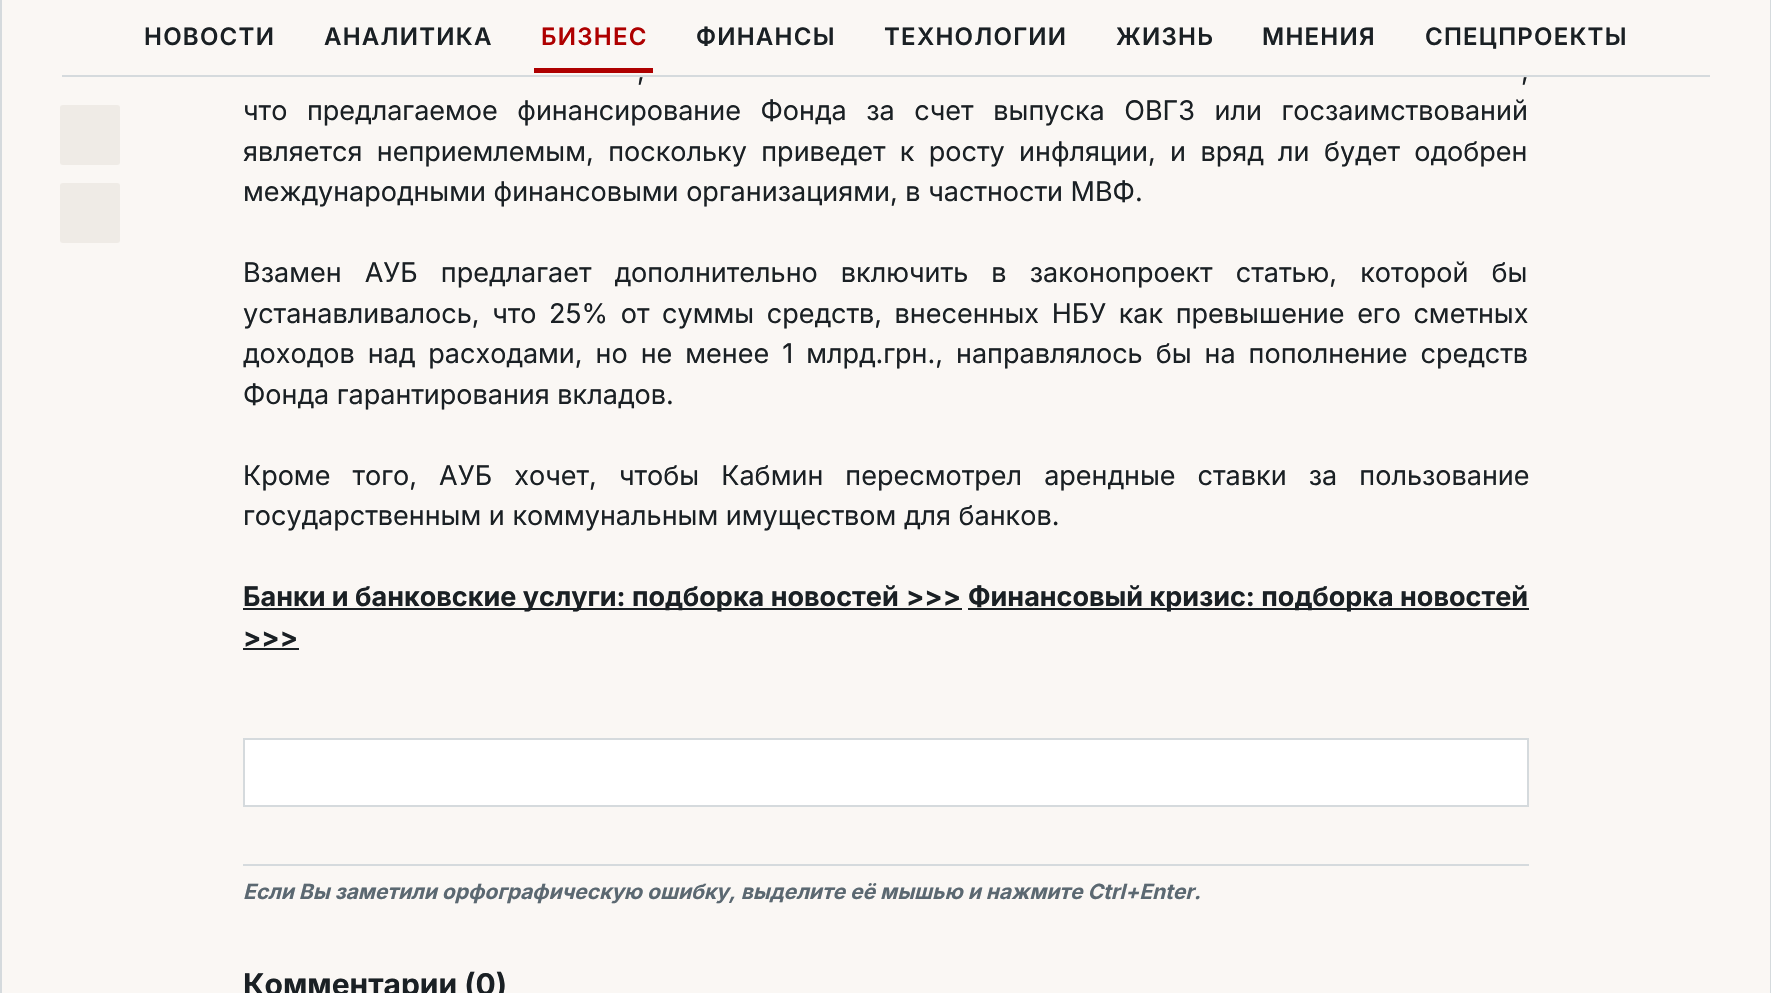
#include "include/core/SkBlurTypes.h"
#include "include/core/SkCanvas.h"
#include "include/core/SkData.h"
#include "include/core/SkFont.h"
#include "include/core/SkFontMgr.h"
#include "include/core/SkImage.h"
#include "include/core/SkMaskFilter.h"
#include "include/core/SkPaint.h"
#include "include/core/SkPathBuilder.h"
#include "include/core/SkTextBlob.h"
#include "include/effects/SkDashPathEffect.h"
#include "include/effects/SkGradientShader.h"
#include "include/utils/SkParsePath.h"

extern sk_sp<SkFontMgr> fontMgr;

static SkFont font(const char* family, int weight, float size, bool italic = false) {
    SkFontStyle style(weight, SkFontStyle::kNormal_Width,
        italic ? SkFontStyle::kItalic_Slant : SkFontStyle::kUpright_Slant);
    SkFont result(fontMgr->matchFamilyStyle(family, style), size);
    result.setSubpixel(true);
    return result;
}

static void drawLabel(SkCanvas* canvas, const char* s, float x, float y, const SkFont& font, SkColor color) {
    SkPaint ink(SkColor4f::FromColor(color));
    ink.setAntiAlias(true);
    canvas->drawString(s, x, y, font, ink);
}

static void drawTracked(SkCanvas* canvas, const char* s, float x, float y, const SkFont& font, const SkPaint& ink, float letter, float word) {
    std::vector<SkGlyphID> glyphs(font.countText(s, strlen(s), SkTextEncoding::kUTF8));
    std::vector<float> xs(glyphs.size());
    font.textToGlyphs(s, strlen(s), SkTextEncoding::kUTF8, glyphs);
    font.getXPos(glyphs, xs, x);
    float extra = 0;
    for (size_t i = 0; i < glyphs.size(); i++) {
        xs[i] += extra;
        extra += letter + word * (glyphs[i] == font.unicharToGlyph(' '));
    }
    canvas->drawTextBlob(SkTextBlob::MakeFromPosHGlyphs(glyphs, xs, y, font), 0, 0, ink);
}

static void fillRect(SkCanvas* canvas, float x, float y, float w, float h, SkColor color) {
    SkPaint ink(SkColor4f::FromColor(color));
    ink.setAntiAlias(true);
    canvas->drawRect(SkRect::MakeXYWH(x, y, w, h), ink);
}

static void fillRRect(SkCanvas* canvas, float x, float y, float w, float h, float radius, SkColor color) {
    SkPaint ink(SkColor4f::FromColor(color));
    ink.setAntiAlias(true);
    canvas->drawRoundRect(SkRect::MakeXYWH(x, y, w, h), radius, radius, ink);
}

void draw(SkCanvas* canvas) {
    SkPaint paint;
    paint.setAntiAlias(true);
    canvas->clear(0xFFFAF7F4);
    fillRect(canvas, 1770, 0, 1, 993, 0xFFD5DADD);
    fillRect(canvas, 0, 0, 2, 993, 0xFFD5DADD);
    fillRect(canvas, 62, 75, 1648, 2, 0xFFD5DADD);
    SkFont font1 = font("Inter", 600, 24);
    paint.setColor(0xFF1A2024);
    drawTracked(canvas, "НОВОСТИ", 144, 45, font1, paint, 1.25f, 0);
    drawTracked(canvas, "АНАЛИТИКА", 324, 45, font1, paint, 1.25f, 0);
    paint.setColor(0xFFAE0000);
    drawTracked(canvas, "БИЗНЕС", 541, 45, font1, paint, 1.25f, 0);
    fillRect(canvas, 534, 68, 119, 5, 0xFFAE0000);
    paint.setColor(0xFF1A2024);
    drawTracked(canvas, "ФИНАНСЫ", 696, 45, font1, paint, 1.25f, 0);
    drawTracked(canvas, "ТЕХНОЛОГИИ", 884, 45, font1, paint, 1.25f, 0);
    drawTracked(canvas, "ЖИЗНЬ", 1116, 45, font1, paint, 1.25f, 0);
    drawTracked(canvas, "МНЕНИЯ", 1262, 45, font1, paint, 1.25f, 0);
    drawTracked(canvas, "СПЕЦПРОЕКТЫ", 1425, 45, font1, paint, 1.25f, 0);
    fillRRect(canvas, 60, 105, 60, 60, 3, 0xFFEFEBE6);
    fillRRect(canvas, 60, 183, 60, 60, 3, 0xFFEFEBE6);
    SkFont font2 = font("Inter", 400, 27);
    drawTracked(canvas, ",", 637, 80, font2, paint, 0, 4);
    drawTracked(canvas, ",", 1521, 80, font2, paint, 0, 4);
    drawTracked(canvas, "что предлагаемое финансирование Фонда за счет выпуска ОВГЗ или госзаимствований", 243, 120, font2, paint, 0, 12);
    drawTracked(canvas, "является неприемлемым, поскольку приведет к росту инфляции, и вряд ли будет одобрен", 243, 161, font2, paint, 0, 6.75f);
    drawLabel(canvas, "международными финансовыми организациями, в частности МВФ.", 243, 201, font2, 0xFF1A2024);
    drawTracked(canvas, "Взамен АУБ предлагает дополнительно включить в законопроект статью, которой бы", 243, 282, font2, paint, 0, 15.5f);
    drawTracked(canvas, "устанавливалось, что 25% от суммы средств, внесенных НБУ как превышение его сметных", 243, 323, font2, paint, 0, 5);
    drawTracked(canvas, "доходов над расходами, но не менее 1 млрд.грн., направлялось бы на пополнение средств", 243, 363, font2, paint, 0, 5.4f);
    drawLabel(canvas, "Фонда гарантирования вкладов.", 243, 404, font2, 0xFF1A2024);
    drawTracked(canvas, "Кроме того, АУБ хочет, чтобы Кабмин пересмотрел арендные ставки за пользование", 243, 485, font2, paint, 0, 14.5f);
    drawLabel(canvas, "государственным и коммунальным имуществом для банков.", 243, 525, font2, 0xFF1A2024);
    fillRect(canvas, 243, 608, 719, 2, 0xFF1A2024);
    SkFont font3 = font("Inter", 700, 27);
    drawLabel(canvas, "Банки и банковские услуги: подборка новостей", 243, 606, font3, 0xFF1A2024);
    drawLabel(canvas, ">>>", 906, 606, font3, 0xFF1A2024);
    fillRect(canvas, 968, 608, 561, 2, 0xFF1A2024);
    drawLabel(canvas, "Финансовый кризис: подборка новостей", 968, 606, font3, 0xFF1A2024);
    drawLabel(canvas, ">>>", 243, 647, font3, 0xFF1A2024);
    fillRect(canvas, 243, 648, 56, 2, 0xFF1A2024);
    paint.setColor(0xFFFFFFFF);
    canvas->drawRect(SkRect::MakeXYWH(244, 739, 1284, 67), paint);
    paint.setStroke(true);
    paint.setStrokeWidth(2);
    paint.setColor(0xFFD5DADD);
    canvas->drawRect(SkRect::MakeXYWH(244, 739, 1284, 67), paint);
    fillRect(canvas, 243, 864, 1286, 2, 0xFFD5DADD);
    SkFont font4 = font("Inter", 700, 21, true);
    drawLabel(canvas, "Если Вы заметили орфографическую ошибку, выделите её мышью и нажмите Ctrl+Enter.", 243, 899, font4, 0xFF5B6871);
    SkFont font5 = font("Inter", 700, 30);
    drawLabel(canvas, "Комментарии (0)", 243, 995, font5, 0xFF1A2024);
}
